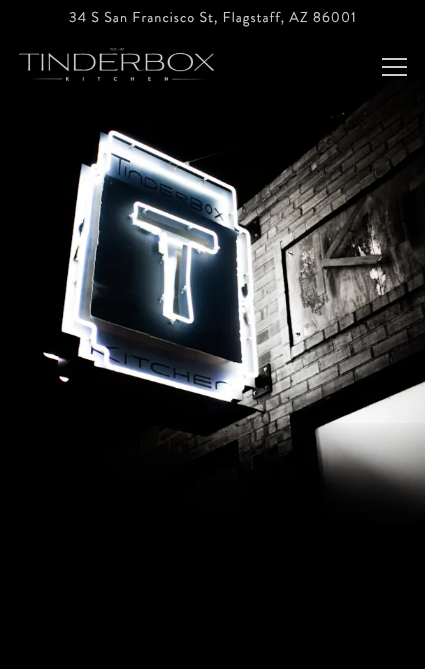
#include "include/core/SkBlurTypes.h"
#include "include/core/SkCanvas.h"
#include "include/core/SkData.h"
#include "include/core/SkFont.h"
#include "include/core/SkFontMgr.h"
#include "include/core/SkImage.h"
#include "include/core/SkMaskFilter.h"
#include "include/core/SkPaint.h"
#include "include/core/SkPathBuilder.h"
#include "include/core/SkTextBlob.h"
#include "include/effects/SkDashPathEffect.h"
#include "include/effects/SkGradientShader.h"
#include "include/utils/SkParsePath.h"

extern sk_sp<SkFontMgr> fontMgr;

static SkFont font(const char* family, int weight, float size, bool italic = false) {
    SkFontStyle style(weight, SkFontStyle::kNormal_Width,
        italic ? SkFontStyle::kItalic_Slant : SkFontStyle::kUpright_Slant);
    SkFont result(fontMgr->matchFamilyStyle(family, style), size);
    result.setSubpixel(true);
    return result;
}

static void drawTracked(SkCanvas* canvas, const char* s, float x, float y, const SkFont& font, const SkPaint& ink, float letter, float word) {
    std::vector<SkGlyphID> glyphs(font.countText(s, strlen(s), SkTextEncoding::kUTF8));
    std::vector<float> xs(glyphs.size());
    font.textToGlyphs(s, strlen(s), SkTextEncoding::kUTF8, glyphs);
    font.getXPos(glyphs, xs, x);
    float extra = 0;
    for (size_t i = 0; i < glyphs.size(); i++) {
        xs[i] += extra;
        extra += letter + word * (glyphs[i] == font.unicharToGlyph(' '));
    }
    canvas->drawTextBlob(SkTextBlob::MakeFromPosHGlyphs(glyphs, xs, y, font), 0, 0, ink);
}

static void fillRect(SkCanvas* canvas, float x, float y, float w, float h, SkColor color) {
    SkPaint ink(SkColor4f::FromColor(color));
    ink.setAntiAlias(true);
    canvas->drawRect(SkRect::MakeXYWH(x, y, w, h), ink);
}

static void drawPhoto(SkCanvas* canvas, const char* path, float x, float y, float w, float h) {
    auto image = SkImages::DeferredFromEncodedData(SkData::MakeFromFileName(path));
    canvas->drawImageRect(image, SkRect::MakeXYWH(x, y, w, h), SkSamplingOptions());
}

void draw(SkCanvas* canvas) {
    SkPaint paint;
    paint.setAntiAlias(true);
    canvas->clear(0xFF000000);
    SkFont font1 = font("Brandon Grotesque", 400, 14.4f);
    paint.setColor(0xFFCCCCCC);
    drawTracked(canvas, "34 S San Francisco St, Flagstaff, AZ 86001", 69, 22, font1, paint, 1, 0);
    drawPhoto(canvas, "assets/img2.png", 39, 79, 386, 443);
    drawPhoto(canvas, "assets/img1.png", 19, 47, 196, 35);
    fillRect(canvas, 382, 58, 25, 2, 0xFFCCCCCC);
    fillRect(canvas, 382, 66, 25, 2, 0xFFCCCCCC);
    fillRect(canvas, 382, 74, 25, 2, 0xFFCCCCCC);
    {
        const SkColor colors[] = {0x00000000, 0xBF000000};
        const float stops[] = {0.75f, 1};
        const SkPoint ends[] = {{212, 0}, {213, 559}};
        paint.setShader(SkGradientShader::MakeLinear(ends, colors, stops, 2, SkTileMode::kClamp));
        paint.setAlpha(255);
    }
    canvas->drawRect(SkRect::MakeXYWH(159, 423, 266, 99), paint);
}
